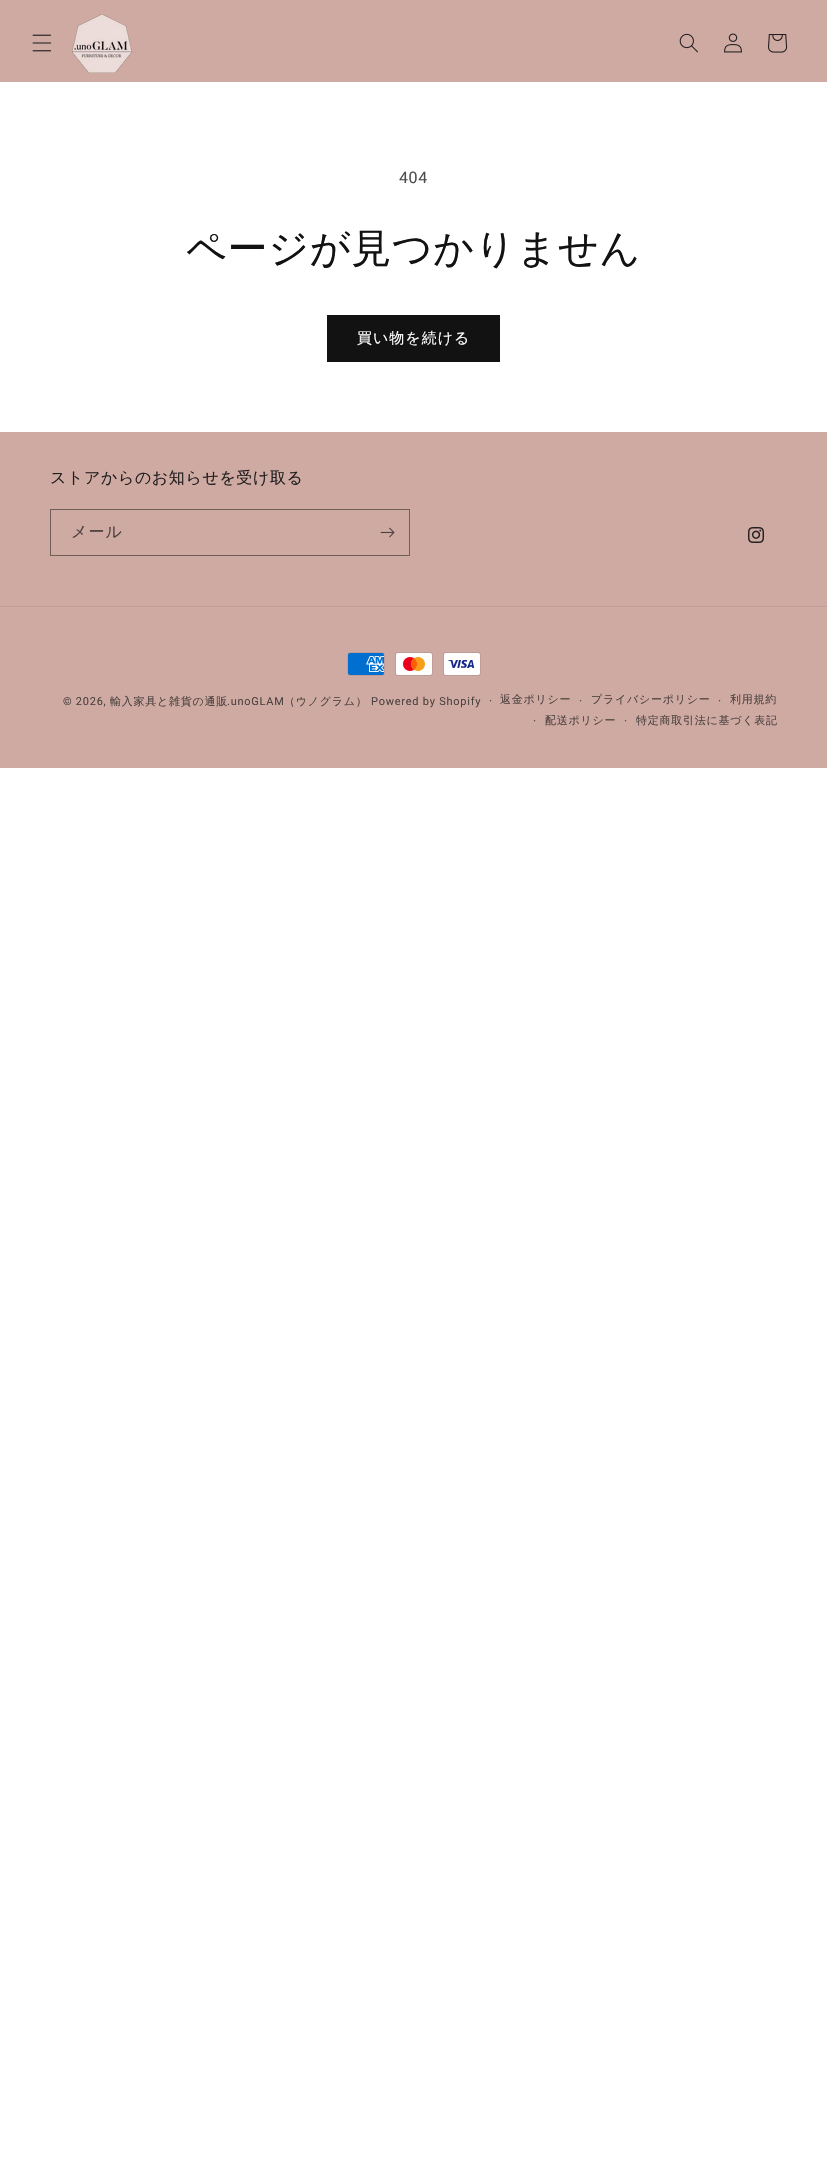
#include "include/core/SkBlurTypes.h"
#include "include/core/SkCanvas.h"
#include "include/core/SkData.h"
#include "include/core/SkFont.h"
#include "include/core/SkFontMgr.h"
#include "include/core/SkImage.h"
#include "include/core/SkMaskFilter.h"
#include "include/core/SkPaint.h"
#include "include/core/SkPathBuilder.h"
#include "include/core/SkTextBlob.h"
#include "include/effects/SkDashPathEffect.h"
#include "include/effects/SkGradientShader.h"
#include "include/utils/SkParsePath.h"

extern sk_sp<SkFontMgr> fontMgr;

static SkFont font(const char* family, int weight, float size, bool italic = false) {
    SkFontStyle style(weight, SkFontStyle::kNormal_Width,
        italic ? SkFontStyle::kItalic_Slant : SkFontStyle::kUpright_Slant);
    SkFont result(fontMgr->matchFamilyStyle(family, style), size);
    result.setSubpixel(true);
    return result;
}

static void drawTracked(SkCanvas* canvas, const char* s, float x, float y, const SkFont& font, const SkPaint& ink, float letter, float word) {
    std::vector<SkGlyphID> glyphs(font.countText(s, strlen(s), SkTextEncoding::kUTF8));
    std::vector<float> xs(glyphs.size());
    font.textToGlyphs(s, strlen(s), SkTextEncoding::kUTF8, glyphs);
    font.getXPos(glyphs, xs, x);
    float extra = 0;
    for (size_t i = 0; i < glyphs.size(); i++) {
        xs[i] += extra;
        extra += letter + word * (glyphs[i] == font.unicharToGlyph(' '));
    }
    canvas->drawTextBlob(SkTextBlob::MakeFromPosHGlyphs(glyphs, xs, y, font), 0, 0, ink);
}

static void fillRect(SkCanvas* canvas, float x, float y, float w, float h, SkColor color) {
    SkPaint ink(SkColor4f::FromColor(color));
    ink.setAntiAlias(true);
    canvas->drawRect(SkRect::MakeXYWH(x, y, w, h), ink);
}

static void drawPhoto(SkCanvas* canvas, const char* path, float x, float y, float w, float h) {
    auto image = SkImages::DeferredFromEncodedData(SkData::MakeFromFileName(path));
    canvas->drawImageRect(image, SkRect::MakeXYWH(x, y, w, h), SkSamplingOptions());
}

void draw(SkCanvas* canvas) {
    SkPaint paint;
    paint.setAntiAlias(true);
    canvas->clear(0xFFFFFFFF);
    fillRect(canvas, 0, 0, 827, 82, 0xFFCFAAA3);
    drawPhoto(canvas, "assets/img1.png", 32, 34, 20, 18);
    drawPhoto(canvas, "assets/img2.png", 72, 14, 60, 59);
    drawPhoto(canvas, "assets/img3.png", 679, 33, 19, 20);
    drawPhoto(canvas, "assets/img4.png", 724, 33, 18, 20);
    drawPhoto(canvas, "assets/img5.png", 768, 34, 20, 19);
    SkFont font1 = font("Roboto", 400, 16);
    paint.setColor(0xFF4D4D4D);
    drawTracked(canvas, "404", 399, 183, font1, paint, 0.6f, 0);
    SkFont font2 = font("WenQuanYi Zen Hei", 500, 40);
    paint.setColor(0xFF121212);
    drawTracked(canvas, "ページが見つかりません", 186, 262, font2, paint, 0.6f, 0);
    fillRect(canvas, 327, 315, 173, 47, 0xFF121212);
    SkFont font3 = font("WenQuanYi Zen Hei", 500, 15);
    paint.setColor(0xFFFFFFFF);
    drawTracked(canvas, "買い物を続ける", 357, 343, font3, paint, 1, 0);
    fillRect(canvas, 0, 432, 827, 336, 0xFFCFAAA3);
    SkFont font4 = font("WenQuanYi Zen Hei", 500, 16);
    paint.setColor(0xFF221F1F);
    drawTracked(canvas, "ストアからのお知らせを受け取る", 50, 483, font4, paint, 0.6f, 0);
    paint.setStroke(true);
    paint.setStrokeWidth(1);
    paint.setColor(0xFF705E5A);
    canvas->drawRect(SkRect::MakeXYWH(50.5f, 509.5f, 359, 46), paint);
    paint.setStroke(false);
    paint.setColor(0xFF4D4240);
    drawTracked(canvas, "メール", 71, 537, font4, paint, 1, 0);
    drawPhoto(canvas, "assets/img6.png", 380, 527, 15, 11);
    drawPhoto(canvas, "assets/img7.png", 748, 527, 16, 16);
    fillRect(canvas, 0, 606, 827, 1, 0xFFC19F98);
    drawPhoto(canvas, "assets/img8.png", 347, 652, 38, 24);
    drawPhoto(canvas, "assets/img9.png", 395, 652, 38, 24);
    drawPhoto(canvas, "assets/img10.png", 443, 652, 38, 24);
    SkFont font5 = font("Roboto", 400, 11);
    drawTracked(canvas, "© 2026,", 63, 705, font5, paint, 0.75f, 0);
    SkFont font6 = font("WenQuanYi Zen Hei", 500, 11);
    drawTracked(canvas, "輸入家具と雑貨の通販", 110, 705, font6, paint, 0.75f, 0);
    drawTracked(canvas, ".unoGLAM", 227, 705, font5, paint, 0.75f, 0);
    drawTracked(canvas, "（ウノグラム）", 284, 705, font6, paint, 0.75f, 0);
    drawTracked(canvas, "Powered by Shopify", 371, 705, font5, paint, 0.75f, 0);
    SkFont font7 = font("Roboto", 400, 12);
    drawTracked(canvas, "·", 489, 705, font7, paint, 0.75f, 0);
    drawTracked(canvas, "返金ポリシー", 500, 703, font6, paint, 0.75f, 0);
    drawTracked(canvas, "·", 579, 705, font7, paint, 0.75f, 0);
    drawTracked(canvas, "プライバシーポリシー", 591, 703, font6, paint, 0.75f, 0);
    drawTracked(canvas, "·", 718, 705, font7, paint, 0.75f, 0);
    drawTracked(canvas, "利用規約", 730, 703, font6, paint, 0.75f, 0);
    drawTracked(canvas, "·", 533, 725, font7, paint, 0.75f, 0);
    drawTracked(canvas, "配送ポリシー", 545, 724, font6, paint, 0.75f, 0);
    drawTracked(canvas, "·", 624, 725, font7, paint, 0.75f, 0);
    drawTracked(canvas, "特定商取引法に基づく表記", 636, 724, font6, paint, 0.75f, 0);
}
